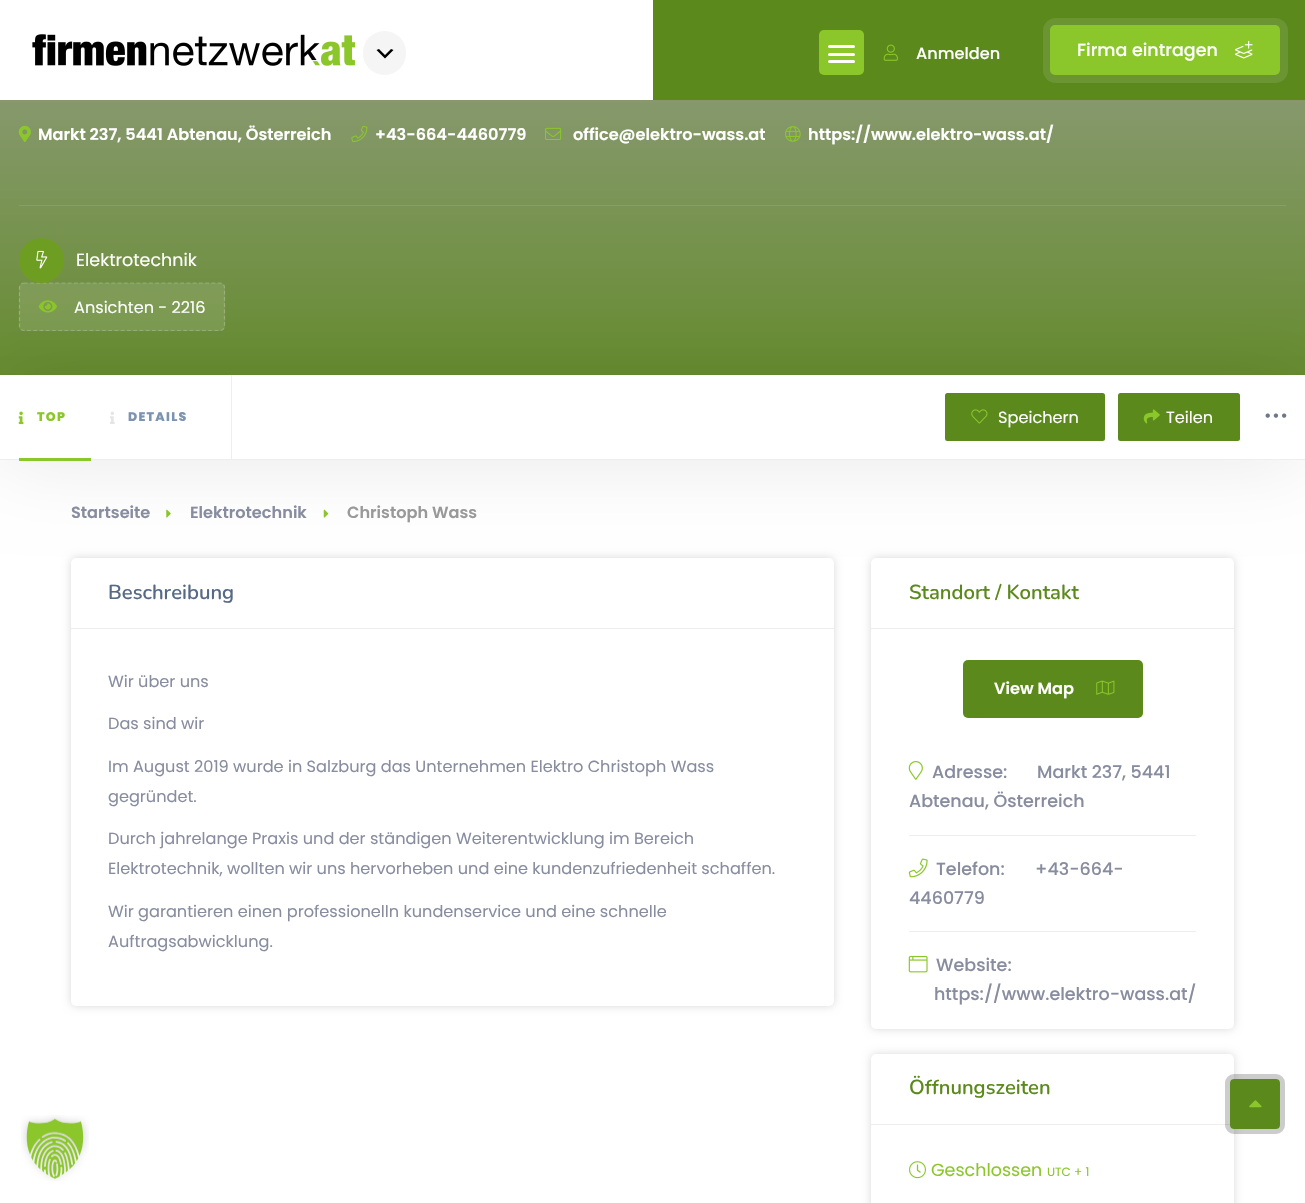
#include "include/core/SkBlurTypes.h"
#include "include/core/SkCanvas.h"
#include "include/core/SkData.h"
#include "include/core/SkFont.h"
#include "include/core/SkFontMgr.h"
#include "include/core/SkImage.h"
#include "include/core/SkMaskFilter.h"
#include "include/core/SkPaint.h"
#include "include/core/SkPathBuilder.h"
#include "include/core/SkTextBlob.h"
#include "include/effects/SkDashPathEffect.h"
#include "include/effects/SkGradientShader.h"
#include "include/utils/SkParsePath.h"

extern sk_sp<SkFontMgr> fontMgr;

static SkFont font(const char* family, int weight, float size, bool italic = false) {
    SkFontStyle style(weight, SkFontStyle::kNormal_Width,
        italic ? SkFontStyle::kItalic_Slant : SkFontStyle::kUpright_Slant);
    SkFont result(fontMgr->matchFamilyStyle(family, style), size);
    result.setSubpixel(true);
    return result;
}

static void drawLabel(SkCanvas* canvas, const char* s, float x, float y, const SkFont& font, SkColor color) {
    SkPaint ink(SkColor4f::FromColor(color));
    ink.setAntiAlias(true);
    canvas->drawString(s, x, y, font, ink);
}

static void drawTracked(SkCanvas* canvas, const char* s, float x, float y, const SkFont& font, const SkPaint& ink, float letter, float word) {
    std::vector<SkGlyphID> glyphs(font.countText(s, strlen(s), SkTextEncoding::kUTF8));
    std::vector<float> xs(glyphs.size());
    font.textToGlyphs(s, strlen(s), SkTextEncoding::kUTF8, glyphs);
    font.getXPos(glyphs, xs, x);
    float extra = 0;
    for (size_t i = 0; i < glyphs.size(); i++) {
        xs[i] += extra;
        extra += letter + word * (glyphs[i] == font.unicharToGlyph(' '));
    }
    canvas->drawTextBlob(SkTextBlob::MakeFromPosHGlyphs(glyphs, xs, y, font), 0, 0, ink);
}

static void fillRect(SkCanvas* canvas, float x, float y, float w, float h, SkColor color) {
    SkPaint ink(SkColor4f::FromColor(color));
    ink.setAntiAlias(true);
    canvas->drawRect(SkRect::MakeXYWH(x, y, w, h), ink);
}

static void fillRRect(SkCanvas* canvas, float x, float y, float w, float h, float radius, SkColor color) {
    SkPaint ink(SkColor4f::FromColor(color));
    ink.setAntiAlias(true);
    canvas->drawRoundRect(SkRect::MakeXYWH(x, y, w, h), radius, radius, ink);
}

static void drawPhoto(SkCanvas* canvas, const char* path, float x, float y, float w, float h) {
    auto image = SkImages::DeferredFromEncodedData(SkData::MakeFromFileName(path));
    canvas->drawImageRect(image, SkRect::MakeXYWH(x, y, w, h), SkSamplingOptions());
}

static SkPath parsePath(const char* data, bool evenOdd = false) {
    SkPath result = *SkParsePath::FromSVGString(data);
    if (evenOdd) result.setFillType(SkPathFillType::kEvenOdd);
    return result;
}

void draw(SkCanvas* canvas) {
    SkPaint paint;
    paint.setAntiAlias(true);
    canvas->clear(0xFFFFFFFF);
    fillRect(canvas, 653, 0, 652, 100, 0xFF5B891B);
    drawPhoto(canvas, "assets/img1.png", 32, 34, 324, 32);
    fillRRect(canvas, 363, 31, 43, 44, 21.5f, 0xFFF5F5F5);
    paint.setColor(0xFF000000);
    canvas->drawPath(parsePath("M379 49L385 55L391 49L393.5 50L385 58.5L376.5 50Z"), paint);
    fillRRect(canvas, 819, 30, 45, 45, 5, 0xFF8BC72A);
    fillRRect(canvas, 828, 45, 27, 3, 1.5f, 0xFFFFFFFF);
    fillRRect(canvas, 828, 53, 27, 3, 1.5f, 0xFFFFFFFF);
    fillRRect(canvas, 828, 60, 27, 3, 1.5f, 0xFFFFFFFF);
    drawPhoto(canvas, "assets/img2.png", 883, 44, 15, 17);
    SkFont font1 = font("Poppins", 500, 16.15f);
    drawLabel(canvas, "Anmelden", 916, 59, font1, 0xFFFFFFFF);
    paint.setStroke(true);
    paint.setStrokeWidth(8);
    paint.setColor(0xFF6B9532);
    canvas->drawRoundRect(SkRect::MakeXYWH(1047, 22, 237, 57), 9, 9, paint);
    fillRRect(canvas, 1050, 25, 230, 50, 5, 0xFF8BC72A);
    SkFont font2 = font("Poppins", 500, 17.5f);
    drawLabel(canvas, "Firma eintragen", 1077, 56, font2, 0xFFFFFFFF);
    drawPhoto(canvas, "assets/img3.png", 1235, 40, 18, 19);
    paint.setStroke(false);
    {
        const SkColor colors[] = {0xFFA3A3A3, 0xFF5F8A22};
        const float stops[] = {0, 1};
        const SkPoint ends[] = {{653, -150}, {653, 438}};
        paint.setShader(SkGradientShader::MakeLinear(ends, colors, stops, 2, SkTileMode::kClamp));
        paint.setAlpha(255);
    }
    canvas->drawRect(SkRect::MakeXYWH(0, 100, 1305, 275), paint);
    drawPhoto(canvas, "assets/img4.png", 18, 125, 13, 17);
    SkFont font3 = font("Poppins", 600, 16.15f);
    drawLabel(canvas, "Markt 237, 5441 Abtenau, Österreich", 38, 140, font3, 0xFFFFFFFF);
    drawPhoto(canvas, "assets/img5.png", 351, 126, 17, 16);
    drawLabel(canvas, "+43-664-4460779", 375, 140, font3, 0xFFFFFFFF);
    drawPhoto(canvas, "assets/img6.png", 545, 127, 17, 13);
    drawLabel(canvas, "office@elektro-wass.at", 573, 140, font3, 0xFFFFFFFF);
    drawPhoto(canvas, "assets/img7.png", 785, 126, 16, 16);
    drawLabel(canvas, "https://www.elektro-wass.at/", 808, 140, font3, 0xFFFFFFFF);
    fillRect(canvas, 19, 205, 1267, 1, 0xFF879F66);
    fillRRect(canvas, 19, 283, 206, 48, 5, 0x1CFFFFFF);
    paint.setStroke(true);
    paint.setStrokeWidth(1.2f);
    paint.setShader(nullptr);
    paint.setColor(0x36FFFFFF);
    paint.setPathEffect(SkDashPathEffect::Make({{3.75f, 2.5f}}, 0));
    canvas->drawPath(parsePath("M24 283H220C222.5 283 224.5 285 224.5 287.5V326C224.5 328.5 222.5 330.5 220 330.5H24C21.5 330.5 19.5 328.5 19.5 326V287.5C19.5 285 21.5 283 24 283Z"), paint);
    paint.setPathEffect(nullptr);
    paint.setStroke(false);
    paint.setColor(0xFF6E9E21);
    canvas->drawCircle(41.5f, 260.5f, 22.5f, paint);
    drawPhoto(canvas, "assets/img8.png", 36, 250, 12, 19);
    SkFont font4 = font("Poppins", 400, 17.5f);
    drawLabel(canvas, "Elektrotechnik", 76, 266, font4, 0xFFFFFFFF);
    drawPhoto(canvas, "assets/img9.png", 38, 300, 19, 13);
    SkFont font5 = font("Poppins", 400, 16.15f);
    drawLabel(canvas, "Ansichten - 2216", 74, 313, font5, 0xFFFFFFFF);
    drawPhoto(canvas, "assets/img15.png", 166, 509, 5, 9);
    drawPhoto(canvas, "assets/img16.png", 323, 509, 6, 9);
    paint.setColor(0x26000000);
    paint.setMaskFilter(SkMaskFilter::MakeBlur(kNormal_SkBlurStyle, 4));
    canvas->drawRoundRect(SkRect::MakeXYWH(71, 558, 763, 448), 5, 5, paint);
    paint.setMaskFilter(nullptr);
    fillRRect(canvas, 71, 558, 763, 448, 5, 0xFFFFFFFF);
    paint.setMaskFilter(SkMaskFilter::MakeBlur(kNormal_SkBlurStyle, 4));
    canvas->drawRoundRect(SkRect::MakeXYWH(871, 558, 363, 471), 5, 5, paint);
    paint.setMaskFilter(nullptr);
    fillRRect(canvas, 871, 558, 363, 471, 5, 0xFFFFFFFF);
    canvas->save();
    canvas->clipPath(parsePath("M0 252H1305V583H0ZM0 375H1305V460H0Z", true), true);
    paint.setColor(0x17000000);
    paint.setMaskFilter(SkMaskFilter::MakeBlur(kNormal_SkBlurStyle, 40.5f));
    canvas->drawRect(SkRect::MakeXYWH(0, 375, 1305, 85), paint);
    paint.setMaskFilter(nullptr);
    canvas->restore();
    fillRect(canvas, 0, 459, 1305, 1, 0xFFEEEEEE);
    fillRect(canvas, 231, 375, 1, 84, 0xFFEEEEEE);
    drawPhoto(canvas, "assets/img10.png", 18, 411, 6, 14);
    SkFont font6 = font("Poppins", 800, 12.5f);
    paint.setColor(0xFF8BC72A);
    drawTracked(canvas, "TOP", 37, 421, font6, paint, 1.25f, 0);
    fillRect(canvas, 19, 458, 72, 3, 0xFF8BC72A);
    drawPhoto(canvas, "assets/img11.png", 110, 411, 5, 13);
    paint.setColor(0xFF7D93B2);
    drawTracked(canvas, "DETAILS", 128, 421, font6, paint, 1.25f, 0);
    fillRRect(canvas, 945, 393, 160, 48, 2.5f, 0xFF5B891B);
    drawPhoto(canvas, "assets/img12.png", 971, 409, 17, 15);
    drawLabel(canvas, "Speichern", 998, 423, font5, 0xFFFFFFFF);
    fillRRect(canvas, 1118, 393, 122, 48, 2.5f, 0xFF5B891B);
    drawPhoto(canvas, "assets/img13.png", 1143, 409, 17, 15);
    drawLabel(canvas, "Teilen", 1166, 423, font5, 0xFFFFFFFF);
    drawPhoto(canvas, "assets/img14.png", 1265, 413, 22, 5);
    drawLabel(canvas, "Startseite", 71, 518, font3, 0xFF878C9F);
    drawLabel(canvas, "Elektrotechnik", 190, 518, font3, 0xFF878C9F);
    drawLabel(canvas, "Christoph Wass", 347, 518, font3, 0xFF999999);
    fillRect(canvas, 71, 628, 763, 1, 0xFFEEEEEE);
    SkFont font7 = font("Nunito", 600, 20.25f);
    drawLabel(canvas, "Beschreibung", 108, 599, font7, 0xFF566985);
    drawLabel(canvas, "Wir über uns", 108, 687, font5, 0xFF878C9F);
    drawLabel(canvas, "Das sind wir", 108, 729, font5, 0xFF878C9F);
    drawLabel(canvas, "Im August 2019 wurde in Salzburg das Unternehmen Elektro Christoph Wass", 108, 772, font5, 0xFF878C9F);
    drawLabel(canvas, "gegründet.", 108, 802, font5, 0xFF878C9F);
    drawLabel(canvas, "Durch jahrelange Praxis und der ständigen Weiterentwicklung im Bereich", 108, 844, font5, 0xFF878C9F);
    drawLabel(canvas, "Elektrotechnik, wollten wir uns hervorheben und eine kundenzufriedenheit schaffen.", 108, 874, font5, 0xFF878C9F);
    drawLabel(canvas, "Wir garantieren einen professionelln kundenservice und eine schnelle", 108, 917, font5, 0xFF878C9F);
    drawLabel(canvas, "Auftragsabwicklung.", 108, 947, font5, 0xFF878C9F);
    fillRect(canvas, 871, 628, 363, 1, 0xFFEEEEEE);
    drawLabel(canvas, "Standort / Kontakt", 909, 599, font7, 0xFF5B891B);
    fillRRect(canvas, 963, 660, 180, 58, 5, 0xFF5B891B);
    drawLabel(canvas, "View Map", 994, 694, font3, 0xFFFFFFFF);
    drawPhoto(canvas, "assets/img17.png", 1096, 680, 19, 15);
    fillRect(canvas, 909, 835, 287, 1, 0xFFEEEEEE);
    drawPhoto(canvas, "assets/img18.png", 908, 761, 15, 19);
    drawLabel(canvas, "Adresse:", 932, 778, font2, 0xFF878C9F);
    drawLabel(canvas, "Markt 237, 5441", 1037, 778, font2, 0xFF878C9F);
    drawLabel(canvas, "Abtenau, Österreich", 909, 807, font2, 0xFF878C9F);
    fillRect(canvas, 909, 931, 287, 1, 0xFFEEEEEE);
    drawPhoto(canvas, "assets/img19.png", 908, 858, 20, 20);
    drawLabel(canvas, "Telefon:", 936, 875, font2, 0xFF878C9F);
    drawLabel(canvas, "+43-664-", 1035, 875, font2, 0xFF878C9F);
    drawLabel(canvas, "4460779", 909, 904, font2, 0xFF878C9F);
    drawPhoto(canvas, "assets/img20.png", 908, 955, 20, 18);
    drawLabel(canvas, "Website:", 936, 971, font2, 0xFF878C9F);
    drawLabel(canvas, "https://www.elektro-wass.at/", 934, 1000, font2, 0xFF878C9F);
    paint.setColor(0x26000000);
    paint.setMaskFilter(SkMaskFilter::MakeBlur(kNormal_SkBlurStyle, 4));
    canvas->drawRoundRect(SkRect::MakeXYWH(871, 1054, 363, 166), 5, 5, paint);
    paint.setMaskFilter(nullptr);
    fillRRect(canvas, 871, 1054, 363, 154, 5, 0xFFFFFFFF);
    fillRect(canvas, 871, 1124, 363, 1, 0xFFEEEEEE);
    drawLabel(canvas, "Öffnungszeiten", 909, 1094, font7, 0xFF5B891B);
    drawPhoto(canvas, "assets/img21.png", 909, 1161, 17, 18);
    drawLabel(canvas, "Geschlossen", 931, 1176, font4, 0xFF8BC72A);
    SkFont font8 = font("Poppins", 400, 12);
    drawLabel(canvas, "UTC + 1", 1047, 1176, font8, 0xFF8BC72A);
    paint.setStroke(true);
    paint.setStrokeWidth(5);
    paint.setColor(0x33000000);
    canvas->drawRoundRect(SkRect::MakeXYWH(1227.5f, 1076.5f, 55, 55), 6.5f, 6.5f, paint);
    fillRRect(canvas, 1230, 1079, 50, 50, 4, 0xFF5B891B);
    drawPhoto(canvas, "assets/img22.png", 1249, 1100, 13, 8);
    drawPhoto(canvas, "assets/img23.png", 21, 1115, 68, 66);
}
